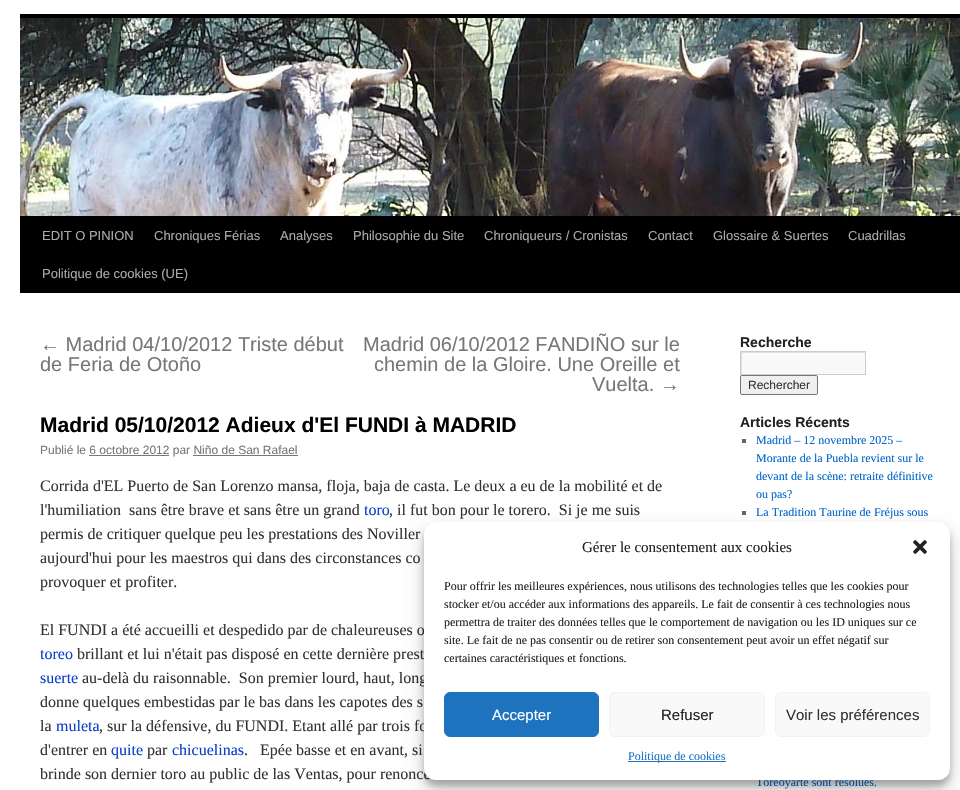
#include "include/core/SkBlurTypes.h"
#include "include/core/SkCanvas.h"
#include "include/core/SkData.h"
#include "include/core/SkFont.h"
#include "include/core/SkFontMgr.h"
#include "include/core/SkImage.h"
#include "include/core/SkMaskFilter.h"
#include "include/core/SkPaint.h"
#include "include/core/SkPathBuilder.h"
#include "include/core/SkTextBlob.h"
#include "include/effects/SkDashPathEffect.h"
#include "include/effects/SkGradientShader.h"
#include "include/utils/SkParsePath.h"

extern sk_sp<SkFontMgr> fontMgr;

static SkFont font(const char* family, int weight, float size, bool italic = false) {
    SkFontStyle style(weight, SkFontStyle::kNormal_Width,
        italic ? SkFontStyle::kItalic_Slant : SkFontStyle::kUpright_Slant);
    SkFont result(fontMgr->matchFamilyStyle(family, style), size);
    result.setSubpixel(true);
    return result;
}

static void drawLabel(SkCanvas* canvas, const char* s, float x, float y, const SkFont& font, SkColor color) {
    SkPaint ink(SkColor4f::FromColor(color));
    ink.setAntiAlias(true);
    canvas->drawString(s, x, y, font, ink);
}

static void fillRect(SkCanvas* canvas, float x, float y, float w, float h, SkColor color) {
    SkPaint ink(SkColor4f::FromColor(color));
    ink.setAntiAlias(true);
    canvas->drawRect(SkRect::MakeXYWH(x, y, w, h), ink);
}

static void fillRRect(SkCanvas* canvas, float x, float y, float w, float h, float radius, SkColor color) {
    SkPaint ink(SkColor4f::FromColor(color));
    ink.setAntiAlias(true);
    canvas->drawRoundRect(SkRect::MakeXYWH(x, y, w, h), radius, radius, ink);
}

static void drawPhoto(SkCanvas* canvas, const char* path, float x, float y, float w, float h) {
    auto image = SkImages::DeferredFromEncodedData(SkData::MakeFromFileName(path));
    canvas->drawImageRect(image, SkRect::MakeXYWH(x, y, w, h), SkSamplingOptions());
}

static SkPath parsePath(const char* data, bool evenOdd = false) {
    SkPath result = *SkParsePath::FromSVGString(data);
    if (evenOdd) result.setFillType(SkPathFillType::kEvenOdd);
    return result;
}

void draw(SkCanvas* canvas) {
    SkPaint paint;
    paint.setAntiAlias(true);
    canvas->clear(0xFFFFFFFF);
    fillRect(canvas, 20, 14, 940, 4, 0xFF000000);
    fillRect(canvas, 20, 216, 940, 77, 0xFF000000);
    drawPhoto(canvas, "assets/img1.png", 20, 18, 940, 198);
    SkFont font1 = font("Liberation Sans", 400, 13);
    drawLabel(canvas, "EDIT O PINION", 42, 240, font1, 0xFFAAAAAA);
    drawLabel(canvas, "Chroniques Férias", 154, 240, font1, 0xFFAAAAAA);
    drawLabel(canvas, "Analyses", 280, 240, font1, 0xFFAAAAAA);
    drawLabel(canvas, "Philosophie du Site", 353, 240, font1, 0xFFAAAAAA);
    drawLabel(canvas, "Chroniqueurs / Cronistas", 484, 240, font1, 0xFFAAAAAA);
    drawLabel(canvas, "Contact", 648, 240, font1, 0xFFAAAAAA);
    drawLabel(canvas, "Glossaire & Suertes", 713, 240, font1, 0xFFAAAAAA);
    drawLabel(canvas, "Cuadrillas", 848, 240, font1, 0xFFAAAAAA);
    drawLabel(canvas, "Politique de cookies (UE)", 42, 278, font1, 0xFFAAAAAA);
    SkFont font2 = font("Liberation Sans", 400, 20);
    drawLabel(canvas, "← Madrid 04/10/2012 Triste début", 40, 351, font2, 0xFF777777);
    drawLabel(canvas, "de Feria de Otoño", 40, 371, font2, 0xFF777777);
    drawLabel(canvas, "Madrid 06/10/2012 FANDIÑO sur le", 363, 351, font2, 0xFF777777);
    drawLabel(canvas, "chemin de la Gloire. Une Oreille et", 374, 371, font2, 0xFF777777);
    drawLabel(canvas, "Vuelta. →", 592, 391, font2, 0xFF777777);
    SkFont font3 = font("Liberation Sans", 700, 21);
    drawLabel(canvas, "Madrid 05/10/2012 Adieux d'El FUNDI à MADRID", 40, 432, font3, 0xFF000000);
    SkFont font4 = font("Liberation Sans", 400, 12);
    drawLabel(canvas, "Publié le 6 octobre 2012 par Niño de San Rafael", 40, 454, font4, 0xFF777777);
    fillRect(canvas, 89, 455, 80, 1, 0xFF777777);
    fillRect(canvas, 193, 455, 105, 1, 0xFF777777);
    SkFont font5 = font("Liberation Serif", 400, 16);
    drawLabel(canvas, "Corrida d'EL Puerto de San Lorenzo mansa, floja, baja de casta. Le deux a eu de la mobilité et de", 40, 491, font5, 0xFF333333);
    drawLabel(canvas, "l'humiliation  sans être brave et sans être un grand", 40, 515, font5, 0xFF333333);
    drawLabel(canvas, "toro", 364, 515, font5, 0xFF0C3FCC);
    drawLabel(canvas, ", il fut bon pour le torero.  Si je me suis", 389, 515, font5, 0xFF333333);
    drawLabel(canvas, "permis de critiquer quelque peu les prestations des Noviller", 40, 539, font5, 0xFF333333);
    drawLabel(canvas, "aujourd'hui pour les maestros qui dans des circonstances co", 40, 563, font5, 0xFF333333);
    drawLabel(canvas, "provoquer et profiter.", 40, 587, font5, 0xFF333333);
    drawLabel(canvas, "El FUNDI a été accueilli et despedido par de chaleureuses o", 40, 635, font5, 0xFF333333);
    drawLabel(canvas, "toreo", 40, 659, font5, 0xFF0C3FCC);
    drawLabel(canvas, "brillant et lui n'était pas disposé en cette dernière prest", 77, 659, font5, 0xFF333333);
    drawLabel(canvas, "suerte", 40, 683, font5, 0xFF0C3FCC);
    drawLabel(canvas, "au-delà du raisonnable.  Son premier lourd, haut, long", 82, 683, font5, 0xFF333333);
    drawLabel(canvas, "donne quelques embestidas par le bas dans les capotes des s", 40, 707, font5, 0xFF333333);
    drawLabel(canvas, "la", 40, 731, font5, 0xFF333333);
    drawLabel(canvas, "muleta", 56, 731, font5, 0xFF0C3FCC);
    drawLabel(canvas, ", sur la défensive, du FUNDI. Etant allé par trois fo", 99, 731, font5, 0xFF333333);
    drawLabel(canvas, "d'entrer en", 40, 755, font5, 0xFF333333);
    drawLabel(canvas, "quite", 111, 755, font5, 0xFF0C3FCC);
    drawLabel(canvas, "par", 147, 755, font5, 0xFF333333);
    drawLabel(canvas, "chicuelinas", 172, 755, font5, 0xFF0C3FCC);
    drawLabel(canvas, ".   Epée basse et en avant, si", 244, 755, font5, 0xFF333333);
    drawLabel(canvas, "brinde son dernier toro au public de las Ventas, pour renonce", 40, 779, font5, 0xFF333333);
    SkFont font6 = font("Liberation Sans", 700, 14);
    drawLabel(canvas, "Recherche", 740, 347, font6, 0xFF222222);
    fillRect(canvas, 742, 353, 123, 21, 0xFFF9F9F9);
    canvas->save();
    canvas->clipRect(SkRect::MakeXYWH(741, 352, 124, 22));
    paint.setColor(0xFFE0E0E0);
    canvas->drawPath(parsePath("M642 253H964V473H642ZM742 353H866V375H742Z", true), paint);
    canvas->restore();
    paint.setStroke(true);
    paint.setStrokeWidth(1);
    paint.setColor(0xFFCCCCCC);
    canvas->drawRect(SkRect::MakeXYWH(740.5f, 351.5f, 125, 23), paint);
    paint.setStroke(false);
    paint.setColor(0xFFEFEFEF);
    canvas->drawRoundRect(SkRect::MakeXYWH(740.5f, 375.5f, 77, 19), 1.5f, 1.5f, paint);
    paint.setStroke(true);
    paint.setColor(0xFF767676);
    canvas->drawRoundRect(SkRect::MakeXYWH(740.5f, 375.5f, 77, 19), 1.5f, 1.5f, paint);
    drawLabel(canvas, "Rechercher", 748, 389, font4, 0xFF333333);
    drawLabel(canvas, "Articles Récents", 740, 427, font6, 0xFF222222);
    fillRect(canvas, 742, 439, 4, 4, 0xFF666666);
    SkFont font7 = font("Liberation Serif", 400, 12);
    drawLabel(canvas, "Madrid – 12 novembre 2025 –", 756, 444, font7, 0xFF0066CC);
    drawLabel(canvas, "Morante de la Puebla revient sur le", 756, 462, font7, 0xFF0066CC);
    drawLabel(canvas, "devant de la scène: retraite définitive", 756, 480, font7, 0xFF0066CC);
    drawLabel(canvas, "ou pas?", 756, 498, font7, 0xFF0066CC);
    fillRect(canvas, 742, 511, 4, 4, 0xFF666666);
    drawLabel(canvas, "La Tradition Taurine de Fréjus sous", 756, 516, font7, 0xFF0066CC);
    drawLabel(canvas, "Toreoyarte sont résolues.", 756, 786, font7, 0xFF0066CC);
    paint.setStroke(false);
    paint.setColor(0x3B000000);
    paint.setMaskFilter(SkMaskFilter::MakeBlur(kNormal_SkBlurStyle, 3));
    canvas->drawRoundRect(SkRect::MakeXYWH(424, 528, 526, 258), 12, 12, paint);
    paint.setMaskFilter(nullptr);
    paint.setColor(0x30000000);
    paint.setMaskFilter(SkMaskFilter::MakeBlur(kNormal_SkBlurStyle, 10));
    canvas->drawRoundRect(SkRect::MakeXYWH(424, 532, 526, 258), 12, 12, paint);
    paint.setMaskFilter(nullptr);
    fillRRect(canvas, 424, 522, 526, 258, 12, 0xFFFFFFFF);
    SkFont font8 = font("Liberation Serif", 400, 15);
    drawLabel(canvas, "Gérer le consentement aux cookies", 582, 552, font8, 0xFF222222);
    drawPhoto(canvas, "assets/img2.png", 913, 540, 14, 14);
    drawLabel(canvas, "Pour offrir les meilleures expériences, nous utilisons des technologies telles que les cookies pour", 444, 590, font7, 0xFF222222);
    drawLabel(canvas, "stocker et/ou accéder aux informations des appareils. Le fait de consentir à ces technologies nous", 444, 608, font7, 0xFF222222);
    drawLabel(canvas, "permettra de traiter des données telles que le comportement de navigation ou les ID uniques sur ce", 444, 626, font7, 0xFF222222);
    drawLabel(canvas, "site. Le fait de ne pas consentir ou de retirer son consentement peut avoir un effet négatif sur", 444, 644, font7, 0xFF222222);
    drawLabel(canvas, "certaines caractéristiques et fonctions.", 444, 662, font7, 0xFF222222);
    paint.setColor(0xFF1E73BE);
    canvas->drawRoundRect(SkRect::MakeXYWH(444.5f, 692.5f, 154, 44), 5.5f, 5.5f, paint);
    paint.setStroke(true);
    canvas->drawRoundRect(SkRect::MakeXYWH(444.5f, 692.5f, 154, 44), 5.5f, 5.5f, paint);
    SkFont font9 = font("Liberation Sans", 400, 15);
    drawLabel(canvas, "Accepter", 492, 720, font9, 0xFFFFFFFF);
    paint.setStroke(false);
    paint.setColor(0xFFF9F9F9);
    canvas->drawRoundRect(SkRect::MakeXYWH(609.5f, 692.5f, 155, 44), 5.5f, 5.5f, paint);
    paint.setStroke(true);
    paint.setColor(0xFFF2F2F2);
    canvas->drawRoundRect(SkRect::MakeXYWH(609.5f, 692.5f, 155, 44), 5.5f, 5.5f, paint);
    drawLabel(canvas, "Refuser", 661, 720, font9, 0xFF222222);
    paint.setStroke(false);
    paint.setColor(0xFFF9F9F9);
    canvas->drawRoundRect(SkRect::MakeXYWH(775.5f, 692.5f, 154, 44), 5.5f, 5.5f, paint);
    paint.setStroke(true);
    paint.setColor(0xFFF2F2F2);
    canvas->drawRoundRect(SkRect::MakeXYWH(775.5f, 692.5f, 154, 44), 5.5f, 5.5f, paint);
    drawLabel(canvas, "Voir les préférences", 786, 720, font9, 0xFF333333);
    fillRect(canvas, 628, 761, 98, 1, 0xFF1E73BE);
    drawLabel(canvas, "Politique de cookies", 628, 760, font7, 0xFF1E73BE);
}
